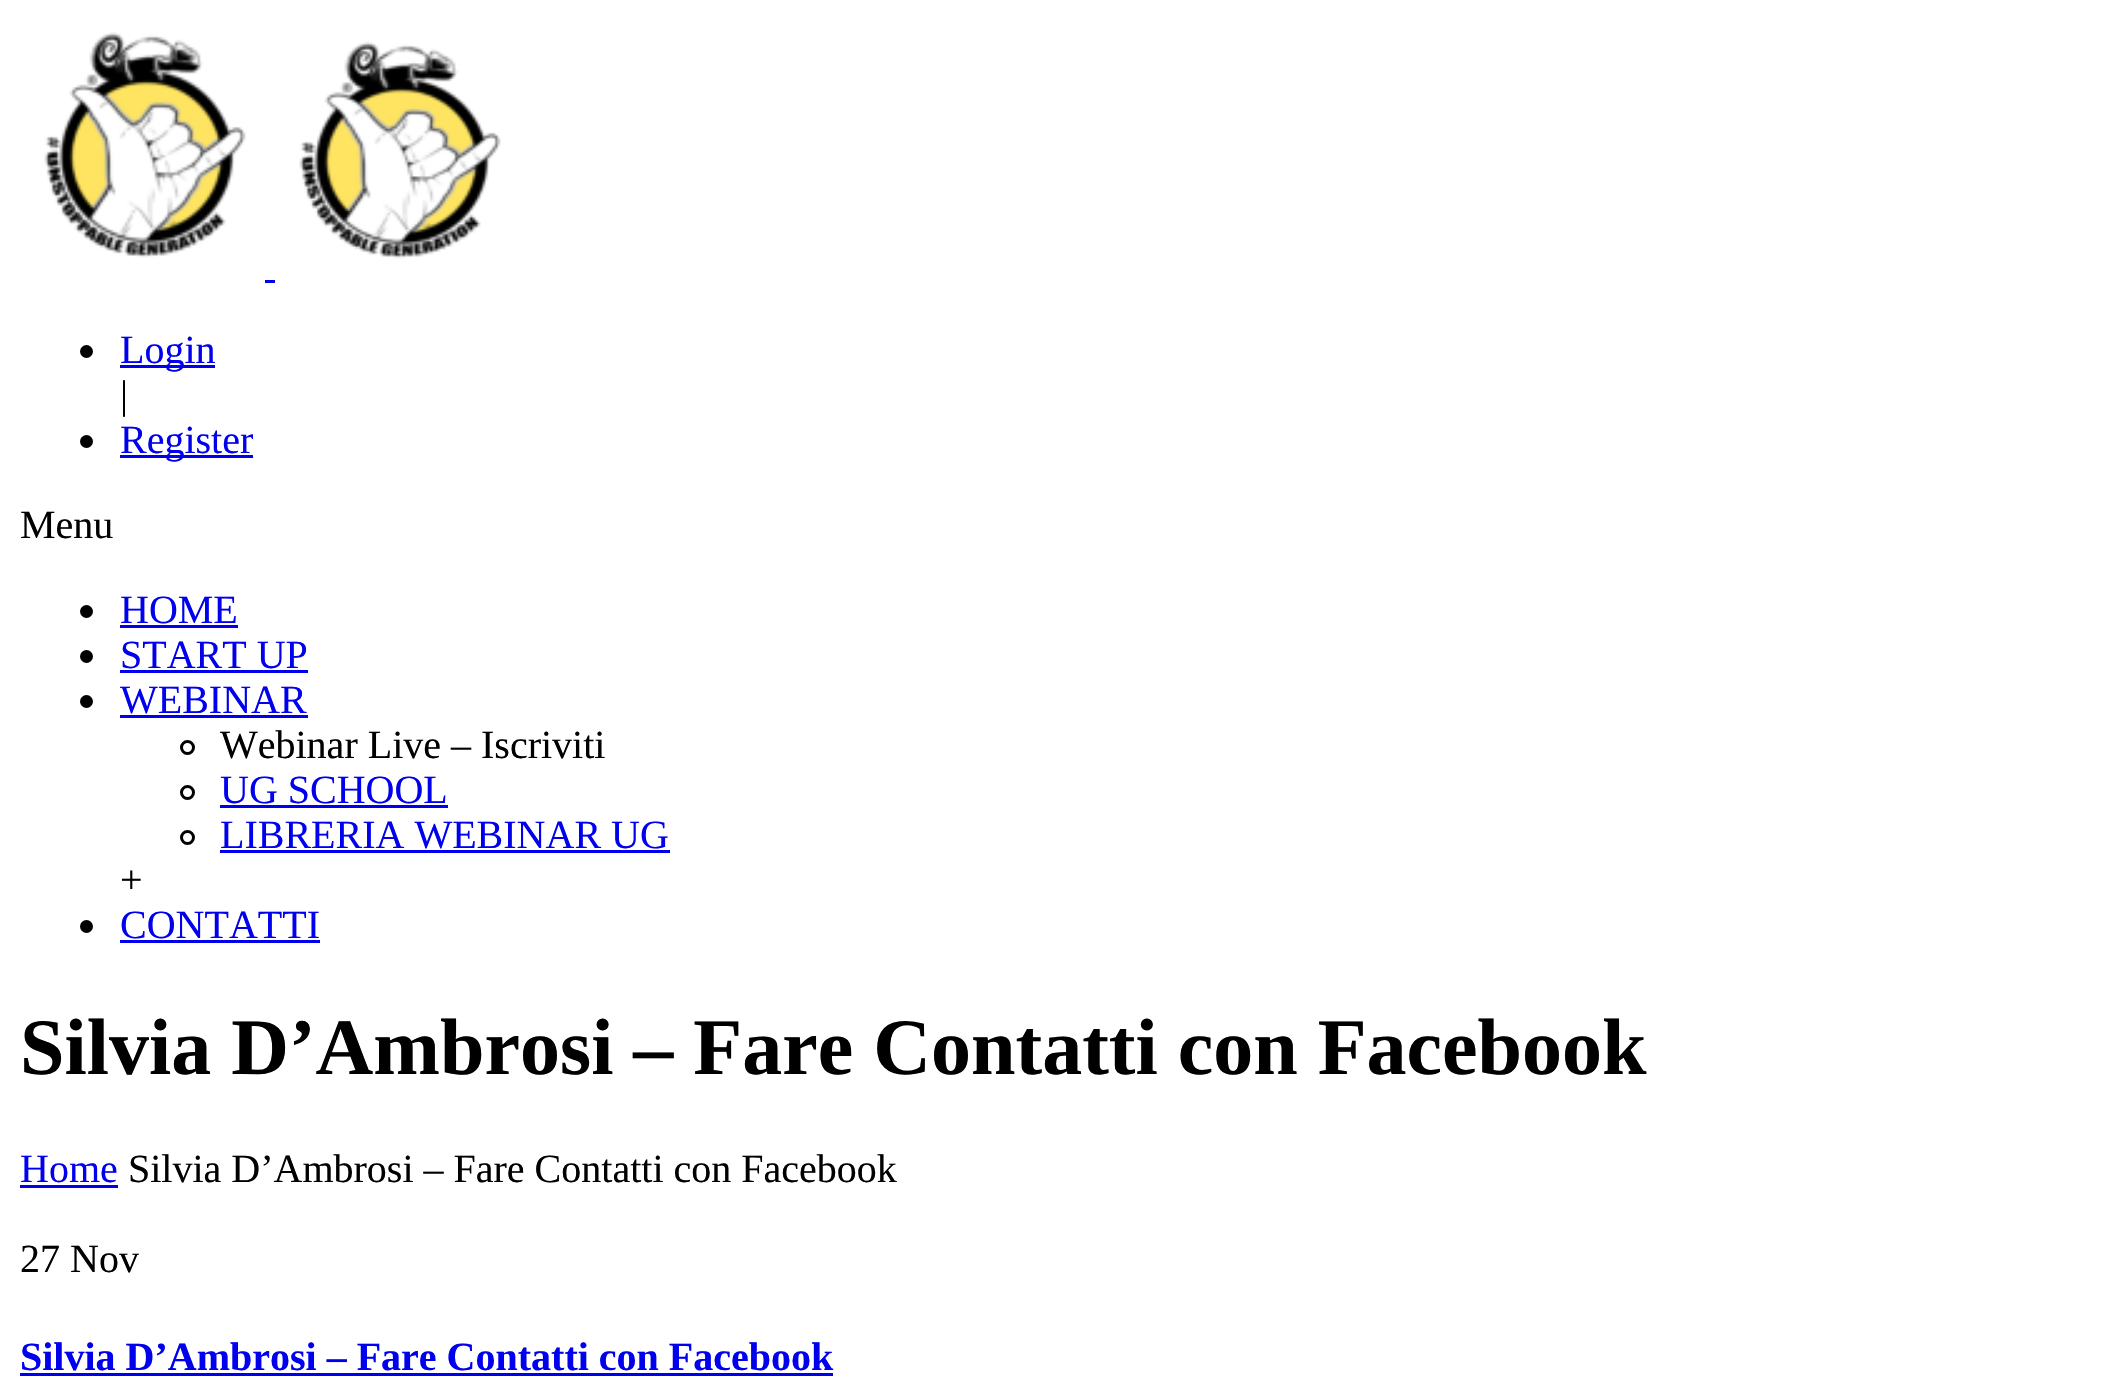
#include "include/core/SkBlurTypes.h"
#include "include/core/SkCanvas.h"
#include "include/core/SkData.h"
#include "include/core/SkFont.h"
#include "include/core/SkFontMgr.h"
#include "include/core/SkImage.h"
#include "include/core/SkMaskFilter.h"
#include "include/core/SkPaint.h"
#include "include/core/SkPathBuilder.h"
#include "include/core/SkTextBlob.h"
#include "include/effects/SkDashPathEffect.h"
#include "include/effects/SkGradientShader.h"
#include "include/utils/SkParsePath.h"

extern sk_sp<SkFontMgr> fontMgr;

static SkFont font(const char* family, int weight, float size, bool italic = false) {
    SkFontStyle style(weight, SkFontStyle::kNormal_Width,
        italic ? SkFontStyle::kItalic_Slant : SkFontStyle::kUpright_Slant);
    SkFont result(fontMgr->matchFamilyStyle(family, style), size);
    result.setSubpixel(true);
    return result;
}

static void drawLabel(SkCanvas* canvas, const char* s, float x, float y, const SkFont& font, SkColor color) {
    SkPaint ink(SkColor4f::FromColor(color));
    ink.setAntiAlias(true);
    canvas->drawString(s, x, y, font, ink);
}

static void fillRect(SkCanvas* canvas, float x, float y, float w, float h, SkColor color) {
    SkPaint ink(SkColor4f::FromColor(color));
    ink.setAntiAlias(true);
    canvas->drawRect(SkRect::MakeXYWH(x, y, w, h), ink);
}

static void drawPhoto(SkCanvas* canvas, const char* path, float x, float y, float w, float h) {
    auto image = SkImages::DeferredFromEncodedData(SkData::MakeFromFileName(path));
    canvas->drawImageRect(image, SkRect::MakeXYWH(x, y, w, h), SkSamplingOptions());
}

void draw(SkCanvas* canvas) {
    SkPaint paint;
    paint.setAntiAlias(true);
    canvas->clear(0xFFFFFFFF);
    drawPhoto(canvas, "assets/img1.png", 44, 32, 202, 226);
    drawPhoto(canvas, "assets/img2.png", 299, 41, 202, 218);
    fillRect(canvas, 265, 280, 10, 3, 0xFF0000EE);
    paint.setColor(0xFF000000);
    canvas->drawCircle(86.5f, 351.5f, 6.5f, paint);
    fillRect(canvas, 120, 365, 95, 3, 0xFF0000EE);
    SkFont font1 = font("Liberation Serif", 400, 40);
    drawLabel(canvas, "Login", 120, 363, font1, 0xFF0000EE);
    drawLabel(canvas, "|", 120, 408, font1, 0xFF000000);
    canvas->drawCircle(86.5f, 441.5f, 6.5f, paint);
    fillRect(canvas, 120, 455, 133, 3, 0xFF0000EE);
    drawLabel(canvas, "Register", 120, 453, font1, 0xFF0000EE);
    drawLabel(canvas, "Menu", 20, 538, font1, 0xFF000000);
    canvas->drawCircle(86.5f, 611.5f, 6.5f, paint);
    drawLabel(canvas, "HOME", 120, 623, font1, 0xFF0000EE);
    fillRect(canvas, 120, 625, 118, 3, 0xFF0000EE);
    canvas->drawCircle(86.5f, 656.5f, 6.5f, paint);
    drawLabel(canvas, "START UP", 120, 668, font1, 0xFF0000EE);
    fillRect(canvas, 120, 670, 188, 3, 0xFF0000EE);
    canvas->drawCircle(86.5f, 701.5f, 6.5f, paint);
    drawLabel(canvas, "WEBINAR", 120, 713, font1, 0xFF0000EE);
    fillRect(canvas, 120, 715, 188, 3, 0xFF0000EE);
    paint.setStroke(true);
    paint.setStrokeWidth(3);
    canvas->drawCircle(187.5f, 747.5f, 6, paint);
    drawLabel(canvas, "Webinar Live – Iscriviti", 220, 758, font1, 0xFF000000);
    canvas->drawCircle(187.5f, 792.5f, 6, paint);
    drawLabel(canvas, "UG SCHOOL", 220, 803, font1, 0xFF0000EE);
    fillRect(canvas, 220, 805, 228, 3, 0xFF0000EE);
    canvas->drawCircle(187.5f, 837.5f, 6, paint);
    drawLabel(canvas, "LIBRERIA WEBINAR UG", 220, 848, font1, 0xFF0000EE);
    fillRect(canvas, 220, 850, 450, 3, 0xFF0000EE);
    drawLabel(canvas, "+", 120, 893, font1, 0xFF000000);
    paint.setStroke(false);
    canvas->drawCircle(86.5f, 926.5f, 6.5f, paint);
    drawLabel(canvas, "CONTATTI", 120, 938, font1, 0xFF0000EE);
    fillRect(canvas, 120, 940, 200, 3, 0xFF0000EE);
    SkFont font2 = font("Liberation Serif", 700, 80);
    drawLabel(canvas, "Silvia D’Ambrosi – Fare Contatti con Facebook", 20, 1074, font2, 0xFF000000);
    drawLabel(canvas, "Home", 20, 1182, font1, 0xFF0000EE);
    fillRect(canvas, 20, 1185, 98, 3, 0xFF0000EE);
    drawLabel(canvas, "Silvia D’Ambrosi – Fare Contatti con Facebook", 128, 1182, font1, 0xFF000000);
    drawLabel(canvas, "27 Nov", 20, 1272, font1, 0xFF000000);
    SkFont font3 = font("Liberation Serif", 700, 40);
    drawLabel(canvas, "Silvia D’Ambrosi – Fare Contatti con Facebook", 20, 1370, font3, 0xFF0000EE);
    fillRect(canvas, 20, 1373, 813, 3, 0xFF0000EE);
}
